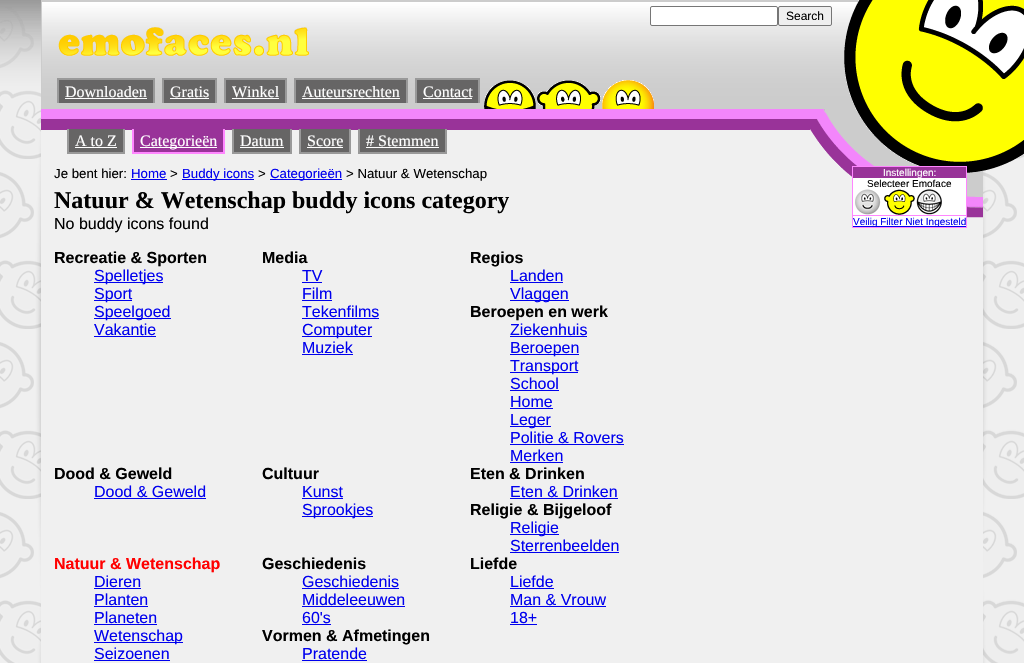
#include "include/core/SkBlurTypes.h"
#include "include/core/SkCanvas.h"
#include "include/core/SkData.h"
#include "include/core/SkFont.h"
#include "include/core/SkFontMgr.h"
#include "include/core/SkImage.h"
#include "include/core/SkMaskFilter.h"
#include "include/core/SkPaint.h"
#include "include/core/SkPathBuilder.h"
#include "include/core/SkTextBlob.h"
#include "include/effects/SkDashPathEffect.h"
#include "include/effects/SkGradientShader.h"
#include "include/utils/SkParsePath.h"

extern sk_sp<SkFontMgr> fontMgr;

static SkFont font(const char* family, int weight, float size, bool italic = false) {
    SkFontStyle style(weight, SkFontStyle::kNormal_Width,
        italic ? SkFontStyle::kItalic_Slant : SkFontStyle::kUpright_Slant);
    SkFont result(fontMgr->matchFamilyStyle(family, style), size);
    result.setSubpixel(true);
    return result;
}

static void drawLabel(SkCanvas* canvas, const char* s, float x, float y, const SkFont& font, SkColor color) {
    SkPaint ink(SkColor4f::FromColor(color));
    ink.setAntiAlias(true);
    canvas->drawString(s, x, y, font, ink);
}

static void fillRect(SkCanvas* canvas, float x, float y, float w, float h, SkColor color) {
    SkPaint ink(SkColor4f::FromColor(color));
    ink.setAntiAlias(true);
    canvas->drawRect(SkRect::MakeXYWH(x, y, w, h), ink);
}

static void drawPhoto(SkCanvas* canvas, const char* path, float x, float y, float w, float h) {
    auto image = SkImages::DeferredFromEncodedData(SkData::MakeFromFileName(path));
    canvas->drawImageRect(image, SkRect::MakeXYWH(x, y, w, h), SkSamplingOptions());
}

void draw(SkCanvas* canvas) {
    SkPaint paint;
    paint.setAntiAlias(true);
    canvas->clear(0xFFFFFFFF);
    drawPhoto(canvas, "assets/img1.png", 0, 0, 41, 663);
    drawPhoto(canvas, "assets/img2.png", 983, 155, 41, 508);
    drawPhoto(canvas, "assets/img3.png", 42, 1, 816, 107);
    paint.setStroke(true);
    paint.setStrokeWidth(1);
    paint.setColor(0xFFCCCCCC);
    canvas->drawRect(SkRect::MakeXYWH(41.5f, 0.5f, 941, 108), paint);
    paint.setStroke(false);
    paint.setColor(0xFFFFFFFF);
    canvas->drawRoundRect(SkRect::MakeXYWH(650.5f, 6.5f, 127, 19), 1.5f, 1.5f, paint);
    paint.setStroke(true);
    paint.setColor(0xFF767676);
    canvas->drawRoundRect(SkRect::MakeXYWH(650.5f, 6.5f, 127, 19), 1.5f, 1.5f, paint);
    paint.setStroke(false);
    paint.setColor(0xFFEFEFEF);
    canvas->drawRoundRect(SkRect::MakeXYWH(778.5f, 6.5f, 53, 19), 1.5f, 1.5f, paint);
    paint.setStroke(true);
    paint.setColor(0xFF767676);
    canvas->drawRoundRect(SkRect::MakeXYWH(778.5f, 6.5f, 53, 19), 1.5f, 1.5f, paint);
    SkFont font1 = font("Liberation Sans", 400, 12);
    drawLabel(canvas, "Search", 786, 20, font1, 0xFF000000);
    drawPhoto(canvas, "assets/img4.png", 58, 27, 252, 29);
    fillRect(canvas, 59, 80, 94, 23, 0xFF666565);
    SkFont font2 = font("Liberation Serif", 400, 16);
    drawLabel(canvas, "Downloaden", 65, 97, font2, 0xFFFFFFFF);
    fillRect(canvas, 57, 78, 98, 2, 0xFF999999);
    fillRect(canvas, 153, 78, 2, 25, 0xFF999999);
    fillRect(canvas, 57, 78, 2, 25, 0xFF999999);
    fillRect(canvas, 65, 98, 82, 1, 0xFFFFFFFF);
    fillRect(canvas, 164, 80, 51, 23, 0xFF666565);
    drawLabel(canvas, "Gratis", 170, 97, font2, 0xFFFFFFFF);
    fillRect(canvas, 162, 78, 55, 2, 0xFF999999);
    fillRect(canvas, 215, 78, 2, 25, 0xFF999999);
    fillRect(canvas, 162, 78, 2, 25, 0xFF999999);
    fillRect(canvas, 170, 98, 39, 1, 0xFFFFFFFF);
    fillRect(canvas, 226, 80, 59, 23, 0xFF666565);
    drawLabel(canvas, "Winkel", 232, 97, font2, 0xFFFFFFFF);
    fillRect(canvas, 224, 78, 63, 2, 0xFF999999);
    fillRect(canvas, 285, 78, 2, 25, 0xFF999999);
    fillRect(canvas, 224, 78, 2, 25, 0xFF999999);
    fillRect(canvas, 232, 98, 47, 1, 0xFFFFFFFF);
    fillRect(canvas, 296, 80, 110, 23, 0xFF666565);
    drawLabel(canvas, "Auteursrechten", 302, 97, font2, 0xFFFFFFFF);
    fillRect(canvas, 294, 78, 114, 2, 0xFF999999);
    fillRect(canvas, 406, 78, 2, 25, 0xFF999999);
    fillRect(canvas, 294, 78, 2, 25, 0xFF999999);
    fillRect(canvas, 302, 98, 98, 1, 0xFFFFFFFF);
    fillRect(canvas, 417, 80, 61, 23, 0xFF666565);
    drawLabel(canvas, "Contact", 423, 97, font2, 0xFFFFFFFF);
    fillRect(canvas, 415, 78, 65, 2, 0xFF999999);
    fillRect(canvas, 478, 78, 2, 25, 0xFF999999);
    fillRect(canvas, 415, 78, 2, 25, 0xFF999999);
    fillRect(canvas, 423, 98, 49, 1, 0xFFFFFFFF);
    drawPhoto(canvas, "assets/img5.png", 484, 80, 52, 29);
    drawPhoto(canvas, "assets/img6.png", 537, 80, 64, 29);
    drawPhoto(canvas, "assets/img7.png", 602, 80, 52, 29);
    fillRect(canvas, 41, 130, 942, 533, 0xFFF0F0F0);
    drawPhoto(canvas, "assets/img9.png", 41, 109, 942, 109);
    drawPhoto(canvas, "assets/img8.png", 844, 0, 180, 173);
    fillRect(canvas, 69, 129, 54, 23, 0xFF666565);
    drawLabel(canvas, "A to Z", 75, 146, font2, 0xFFFFFFFF);
    fillRect(canvas, 123, 129, 2, 25, 0xFF999999);
    fillRect(canvas, 67, 152, 58, 2, 0xFF999999);
    fillRect(canvas, 67, 129, 2, 25, 0xFF999999);
    fillRect(canvas, 75, 147, 42, 1, 0xFFFFFFFF);
    fillRect(canvas, 134, 130, 89, 22, 0xFF993399);
    fillRect(canvas, 140, 147, 77, 1, 0xFFFFFFFF);
    drawLabel(canvas, "Categorieën", 140, 146, font2, 0xFFFFFFFF);
    fillRect(canvas, 223, 129, 2, 25, 0xFFFF86FF);
    fillRect(canvas, 132, 152, 93, 2, 0xFFFF86FF);
    fillRect(canvas, 132, 129, 2, 25, 0xFFFF86FF);
    fillRect(canvas, 234, 129, 56, 23, 0xFF666565);
    drawLabel(canvas, "Datum", 240, 146, font2, 0xFFFFFFFF);
    fillRect(canvas, 290, 129, 2, 25, 0xFF999999);
    fillRect(canvas, 232, 152, 60, 2, 0xFF999999);
    fillRect(canvas, 232, 129, 2, 25, 0xFF999999);
    fillRect(canvas, 240, 147, 44, 1, 0xFFFFFFFF);
    fillRect(canvas, 301, 129, 48, 23, 0xFF666565);
    drawLabel(canvas, "Score", 307, 146, font2, 0xFFFFFFFF);
    fillRect(canvas, 349, 129, 2, 25, 0xFF999999);
    fillRect(canvas, 299, 152, 52, 2, 0xFF999999);
    fillRect(canvas, 299, 129, 2, 25, 0xFF999999);
    fillRect(canvas, 307, 147, 36, 1, 0xFFFFFFFF);
    fillRect(canvas, 360, 129, 85, 23, 0xFF666565);
    drawLabel(canvas, "# Stemmen", 366, 146, font2, 0xFFFFFFFF);
    fillRect(canvas, 445, 129, 2, 25, 0xFF999999);
    fillRect(canvas, 358, 152, 89, 2, 0xFF999999);
    fillRect(canvas, 358, 129, 2, 25, 0xFF999999);
    fillRect(canvas, 366, 147, 73, 1, 0xFFFFFFFF);
    SkFont font3 = font("Liberation Sans", 400, 13.25f);
    drawLabel(canvas, "Je bent hier:", 54, 178, font3, 0xFF000000);
    drawLabel(canvas, "Home", 131, 178, font3, 0xFF0000EE);
    fillRect(canvas, 131, 179, 36, 1, 0xFF0000EE);
    drawLabel(canvas, ">", 170, 178, font3, 0xFF000000);
    fillRect(canvas, 182, 179, 72, 1, 0xFF0000EE);
    drawLabel(canvas, "Buddy icons", 182, 178, font3, 0xFF0000EE);
    drawLabel(canvas, ">", 258, 178, font3, 0xFF000000);
    fillRect(canvas, 270, 179, 72, 1, 0xFF0000EE);
    drawLabel(canvas, "Categorieën", 270, 178, font3, 0xFF0000EE);
    drawLabel(canvas, "> Natuur & Wetenschap", 346, 178, font3, 0xFF000000);
    fillRect(canvas, 853, 178, 113, 48, 0xFFFFFFFF);
    paint.setColor(0xFFFF86FF);
    canvas->drawRect(SkRect::MakeXYWH(852.5f, 166.5f, 114, 61), paint);
    fillRect(canvas, 853, 167, 113, 11, 0xFF993399);
    SkFont font4 = font("Liberation Sans", 400, 10);
    drawLabel(canvas, "Instellingen:", 883, 176, font4, 0xFFFFFFFF);
    drawLabel(canvas, "Selecteer Emoface", 867, 187, font4, 0xFF000000);
    drawPhoto(canvas, "assets/img10.png", 855, 189, 26, 26);
    drawPhoto(canvas, "assets/img11.png", 884, 189, 31, 26);
    drawPhoto(canvas, "assets/img12.png", 916, 189, 26, 26);
    fillRect(canvas, 853, 215, 113, 1, 0xFFFF86FF);
    fillRect(canvas, 853, 226, 113, 1, 0xFF0000EE);
    drawLabel(canvas, "Veilig Filter Niet Ingesteld", 853, 225, font4, 0xFF0000EE);
    SkFont font5 = font("Liberation Serif", 700, 24);
    drawLabel(canvas, "Natuur & Wetenschap buddy icons category", 54, 208, font5, 0xFF000000);
    SkFont font6 = font("Liberation Sans", 400, 16);
    drawLabel(canvas, "No buddy icons found", 54, 229, font6, 0xFF000000);
    SkFont font7 = font("Liberation Sans", 700, 16);
    drawLabel(canvas, "Recreatie & Sporten", 54, 263, font7, 0xFF000000);
    fillRect(canvas, 94, 282, 69, 1, 0xFF0000EE);
    drawLabel(canvas, "Spelletjes", 94, 281, font6, 0xFF0000EE);
    fillRect(canvas, 94, 300, 38, 1, 0xFF0000EE);
    drawLabel(canvas, "Sport", 94, 299, font6, 0xFF0000EE);
    fillRect(canvas, 94, 318, 77, 1, 0xFF0000EE);
    drawLabel(canvas, "Speelgoed", 94, 317, font6, 0xFF0000EE);
    drawLabel(canvas, "Vakantie", 94, 335, font6, 0xFF0000EE);
    fillRect(canvas, 94, 336, 62, 1, 0xFF0000EE);
    drawLabel(canvas, "Media", 262, 263, font7, 0xFF000000);
    drawLabel(canvas, "TV", 302, 281, font6, 0xFF0000EE);
    fillRect(canvas, 302, 282, 20, 1, 0xFF0000EE);
    drawLabel(canvas, "Film", 302, 299, font6, 0xFF0000EE);
    fillRect(canvas, 302, 300, 30, 1, 0xFF0000EE);
    drawLabel(canvas, "Tekenfilms", 302, 317, font6, 0xFF0000EE);
    fillRect(canvas, 302, 318, 77, 1, 0xFF0000EE);
    fillRect(canvas, 302, 336, 70, 1, 0xFF0000EE);
    drawLabel(canvas, "Computer", 302, 335, font6, 0xFF0000EE);
    drawLabel(canvas, "Muziek", 302, 353, font6, 0xFF0000EE);
    fillRect(canvas, 302, 354, 51, 1, 0xFF0000EE);
    drawLabel(canvas, "Regios", 470, 263, font7, 0xFF000000);
    drawLabel(canvas, "Landen", 510, 281, font6, 0xFF0000EE);
    fillRect(canvas, 510, 282, 53, 1, 0xFF0000EE);
    fillRect(canvas, 510, 300, 59, 1, 0xFF0000EE);
    drawLabel(canvas, "Vlaggen", 510, 299, font6, 0xFF0000EE);
    drawLabel(canvas, "Beroepen en werk", 470, 317, font7, 0xFF000000);
    drawLabel(canvas, "Ziekenhuis", 510, 335, font6, 0xFF0000EE);
    fillRect(canvas, 510, 336, 77, 1, 0xFF0000EE);
    fillRect(canvas, 510, 354, 69, 1, 0xFF0000EE);
    drawLabel(canvas, "Beroepen", 510, 353, font6, 0xFF0000EE);
    fillRect(canvas, 510, 372, 68, 1, 0xFF0000EE);
    drawLabel(canvas, "Transport", 510, 371, font6, 0xFF0000EE);
    drawLabel(canvas, "School", 510, 389, font6, 0xFF0000EE);
    fillRect(canvas, 510, 390, 49, 1, 0xFF0000EE);
    drawLabel(canvas, "Home", 510, 407, font6, 0xFF0000EE);
    fillRect(canvas, 510, 408, 43, 1, 0xFF0000EE);
    fillRect(canvas, 510, 426, 41, 1, 0xFF0000EE);
    drawLabel(canvas, "Leger", 510, 425, font6, 0xFF0000EE);
    drawLabel(canvas, "Politie & Rovers", 510, 443, font6, 0xFF0000EE);
    fillRect(canvas, 510, 444, 114, 1, 0xFF0000EE);
    drawLabel(canvas, "Merken", 510, 461, font6, 0xFF0000EE);
    fillRect(canvas, 510, 462, 53, 1, 0xFF0000EE);
    drawLabel(canvas, "Dood & Geweld", 54, 479, font7, 0xFF000000);
    drawLabel(canvas, "Dood & Geweld", 94, 497, font6, 0xFF0000EE);
    fillRect(canvas, 94, 498, 112, 1, 0xFF0000EE);
    drawLabel(canvas, "Cultuur", 262, 479, font7, 0xFF000000);
    drawLabel(canvas, "Kunst", 302, 497, font6, 0xFF0000EE);
    fillRect(canvas, 302, 498, 41, 1, 0xFF0000EE);
    fillRect(canvas, 302, 516, 71, 1, 0xFF0000EE);
    drawLabel(canvas, "Sprookjes", 302, 515, font6, 0xFF0000EE);
    drawLabel(canvas, "Eten & Drinken", 470, 479, font7, 0xFF000000);
    drawLabel(canvas, "Eten & Drinken", 510, 497, font6, 0xFF0000EE);
    fillRect(canvas, 510, 498, 108, 1, 0xFF0000EE);
    drawLabel(canvas, "Religie & Bijgeloof", 470, 515, font7, 0xFF000000);
    fillRect(canvas, 510, 534, 49, 1, 0xFF0000EE);
    drawLabel(canvas, "Religie", 510, 533, font6, 0xFF0000EE);
    drawLabel(canvas, "Sterrenbeelden", 510, 551, font6, 0xFF0000EE);
    fillRect(canvas, 510, 552, 109, 1, 0xFF0000EE);
    drawLabel(canvas, "Natuur & Wetenschap", 54, 569, font7, 0xFFFF0000);
    drawLabel(canvas, "Dieren", 94, 587, font6, 0xFF0000EE);
    fillRect(canvas, 94, 588, 47, 1, 0xFF0000EE);
    drawLabel(canvas, "Planten", 94, 605, font6, 0xFF0000EE);
    fillRect(canvas, 94, 606, 54, 1, 0xFF0000EE);
    drawLabel(canvas, "Planeten", 94, 623, font6, 0xFF0000EE);
    fillRect(canvas, 94, 624, 63, 1, 0xFF0000EE);
    fillRect(canvas, 94, 642, 89, 1, 0xFF0000EE);
    drawLabel(canvas, "Wetenschap", 94, 641, font6, 0xFF0000EE);
    drawLabel(canvas, "Seizoenen", 94, 659, font6, 0xFF0000EE);
    fillRect(canvas, 94, 660, 76, 1, 0xFF0000EE);
    drawLabel(canvas, "Geschiedenis", 262, 569, font7, 0xFF000000);
    drawLabel(canvas, "Geschiedenis", 302, 587, font6, 0xFF0000EE);
    fillRect(canvas, 302, 588, 97, 1, 0xFF0000EE);
    drawLabel(canvas, "Middeleeuwen", 302, 605, font6, 0xFF0000EE);
    fillRect(canvas, 302, 606, 103, 1, 0xFF0000EE);
    drawLabel(canvas, "60's", 302, 623, font6, 0xFF0000EE);
    fillRect(canvas, 302, 624, 29, 1, 0xFF0000EE);
    drawLabel(canvas, "Liefde", 470, 569, font7, 0xFF000000);
    drawLabel(canvas, "Liefde", 510, 587, font6, 0xFF0000EE);
    fillRect(canvas, 510, 588, 44, 1, 0xFF0000EE);
    drawLabel(canvas, "Man & Vrouw", 510, 605, font6, 0xFF0000EE);
    fillRect(canvas, 510, 606, 96, 1, 0xFF0000EE);
    drawLabel(canvas, "18+", 510, 623, font6, 0xFF0000EE);
    fillRect(canvas, 510, 624, 27, 1, 0xFF0000EE);
    drawLabel(canvas, "Vormen & Afmetingen", 262, 641, font7, 0xFF000000);
    drawLabel(canvas, "Pratende", 302, 659, font6, 0xFF0000EE);
    fillRect(canvas, 302, 660, 65, 1, 0xFF0000EE);
}
